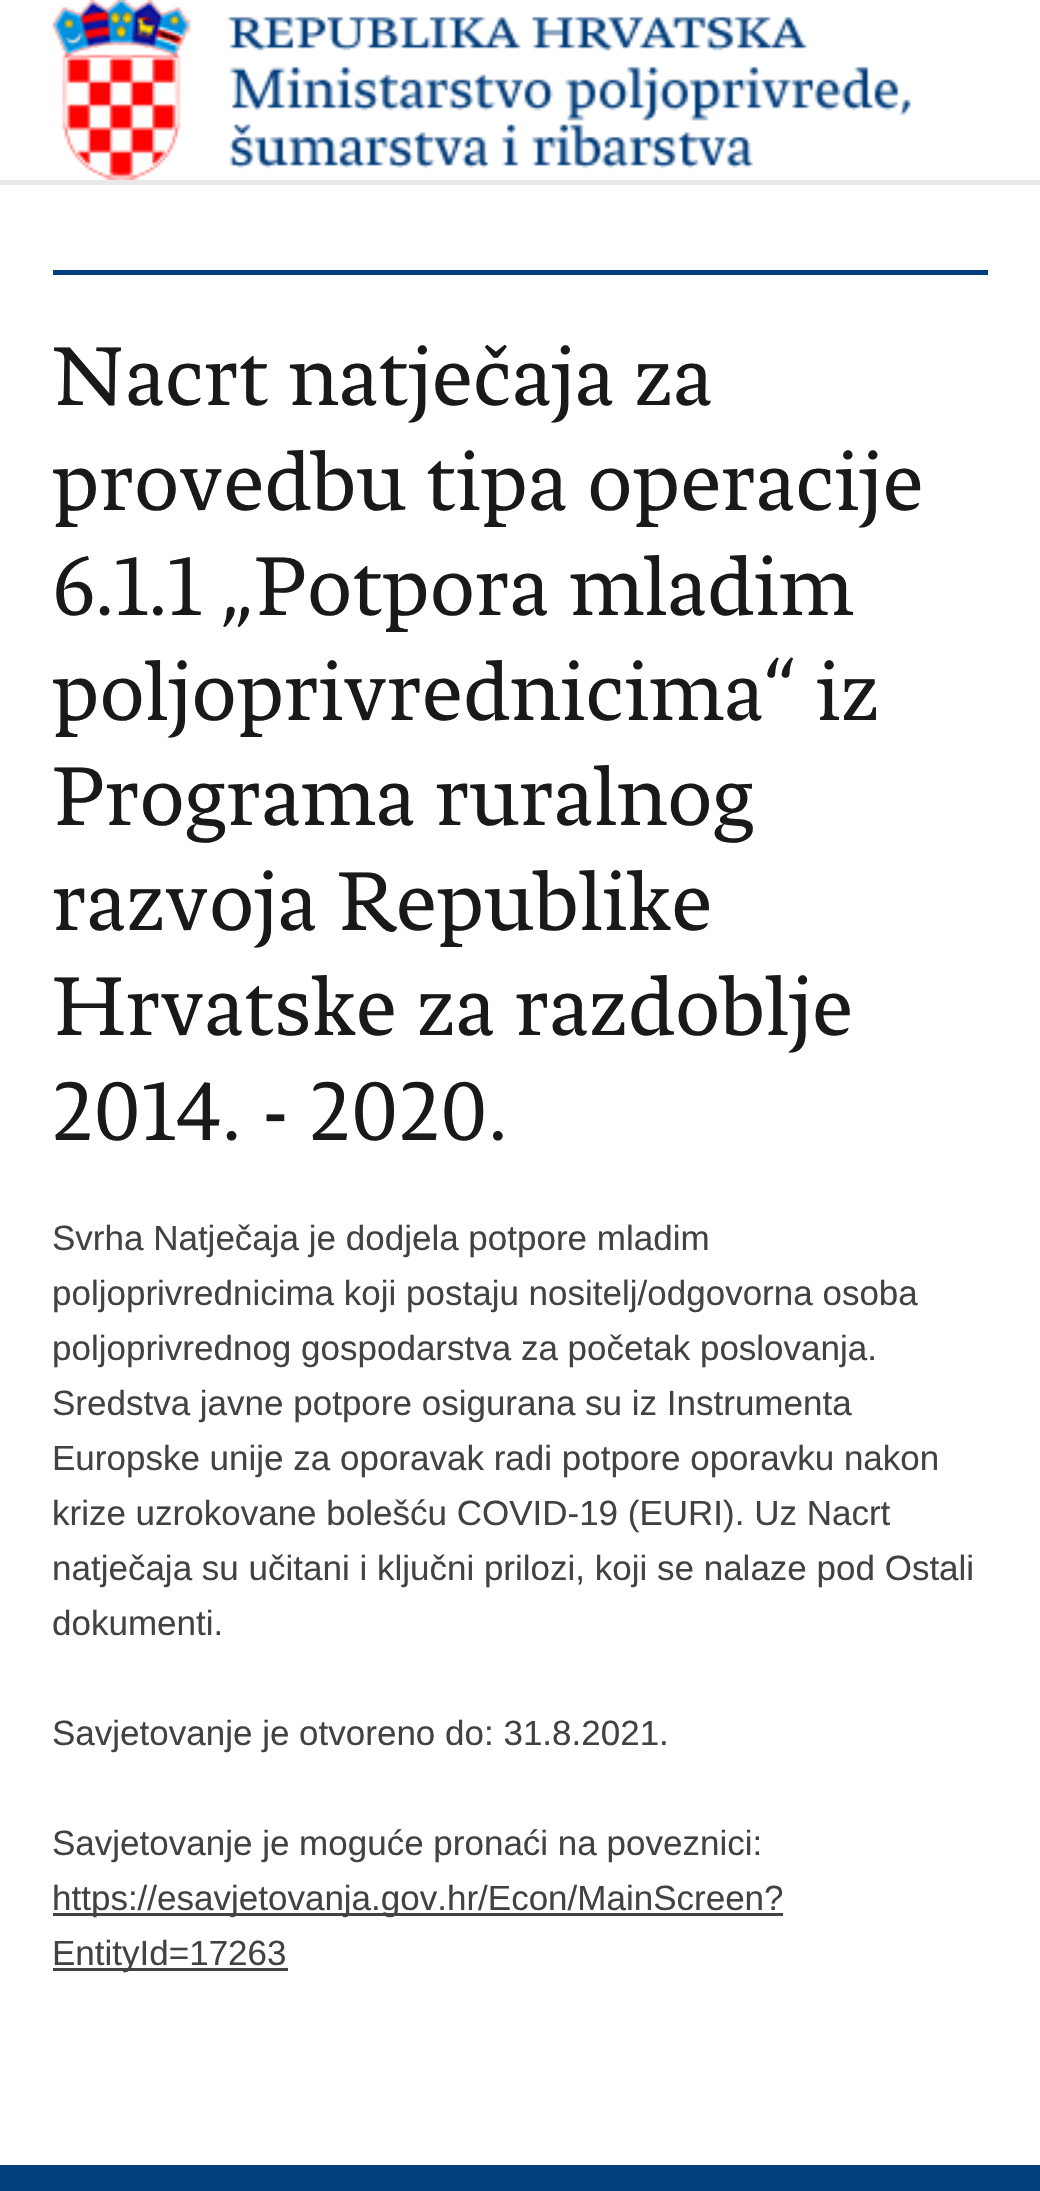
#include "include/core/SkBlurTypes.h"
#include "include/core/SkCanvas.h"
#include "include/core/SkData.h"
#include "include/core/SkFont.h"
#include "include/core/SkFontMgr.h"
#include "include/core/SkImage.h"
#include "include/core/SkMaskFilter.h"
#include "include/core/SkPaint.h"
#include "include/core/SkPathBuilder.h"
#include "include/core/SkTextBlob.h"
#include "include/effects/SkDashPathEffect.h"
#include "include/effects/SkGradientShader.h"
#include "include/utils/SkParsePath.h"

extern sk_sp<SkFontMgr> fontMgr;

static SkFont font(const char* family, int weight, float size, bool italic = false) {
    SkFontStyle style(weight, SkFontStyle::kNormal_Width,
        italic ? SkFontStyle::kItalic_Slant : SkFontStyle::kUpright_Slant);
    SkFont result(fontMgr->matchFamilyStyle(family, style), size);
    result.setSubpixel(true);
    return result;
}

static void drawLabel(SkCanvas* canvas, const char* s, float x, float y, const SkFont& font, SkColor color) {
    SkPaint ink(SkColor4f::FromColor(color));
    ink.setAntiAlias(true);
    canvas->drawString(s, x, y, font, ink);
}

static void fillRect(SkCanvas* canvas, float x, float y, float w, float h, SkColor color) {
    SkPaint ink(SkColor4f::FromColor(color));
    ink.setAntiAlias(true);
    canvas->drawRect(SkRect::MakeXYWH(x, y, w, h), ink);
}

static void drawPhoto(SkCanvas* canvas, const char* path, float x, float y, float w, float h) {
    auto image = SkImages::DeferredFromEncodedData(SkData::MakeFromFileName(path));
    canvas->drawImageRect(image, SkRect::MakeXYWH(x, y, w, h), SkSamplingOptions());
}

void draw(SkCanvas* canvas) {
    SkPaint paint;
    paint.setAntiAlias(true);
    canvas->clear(0xFFFFFFFF);
    fillRect(canvas, 0, 180, 1040, 5, 0xFFE9E9E9);
    drawPhoto(canvas, "assets/img1.png", 52, 0, 859, 180);
    fillRect(canvas, 53, 270, 935, 5, 0xFF033E7C);
    SkFont font1 = font("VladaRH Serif", 400, 87.5f);
    drawLabel(canvas, "Nacrt natječaja za", 52, 405, font1, 0xFF191919);
    drawLabel(canvas, "provedbu tipa operacije", 52, 510, font1, 0xFF191919);
    drawLabel(canvas, "6.1.1 „Potpora mladim", 52, 615, font1, 0xFF191919);
    drawLabel(canvas, "poljoprivrednicima“ iz", 52, 720, font1, 0xFF191919);
    drawLabel(canvas, "Programa ruralnog", 52, 825, font1, 0xFF191919);
    drawLabel(canvas, "razvoja Republike", 52, 930, font1, 0xFF191919);
    drawLabel(canvas, "Hrvatske za razdoblje", 52, 1035, font1, 0xFF191919);
    drawLabel(canvas, "2014. - 2020.", 52, 1140, font1, 0xFF191919);
    SkFont font2 = font("Liberation Sans", 400, 35);
    drawLabel(canvas, "Svrha Natječaja je dodjela potpore mladim", 52, 1250, font2, 0xFF424242);
    drawLabel(canvas, "poljoprivrednicima koji postaju nositelj/odgovorna osoba", 52, 1305, font2, 0xFF424242);
    drawLabel(canvas, "poljoprivrednog gospodarstva za početak poslovanja.", 52, 1360, font2, 0xFF424242);
    drawLabel(canvas, "Sredstva javne potpore osigurana su iz Instrumenta", 52, 1415, font2, 0xFF424242);
    drawLabel(canvas, "Europske unije za oporavak radi potpore oporavku nakon", 52, 1470, font2, 0xFF424242);
    drawLabel(canvas, "krize uzrokovane bolešću COVID-19 (EURI). Uz Nacrt", 52, 1525, font2, 0xFF424242);
    drawLabel(canvas, "natječaja su učitani i ključni prilozi, koji se nalaze pod Ostali", 52, 1580, font2, 0xFF424242);
    drawLabel(canvas, "dokumenti.", 52, 1635, font2, 0xFF424242);
    drawLabel(canvas, "Savjetovanje je otvoreno do: 31.8.2021.", 52, 1745, font2, 0xFF424242);
    drawLabel(canvas, "Savjetovanje je moguće pronaći na poveznici:", 52, 1855, font2, 0xFF424242);
    fillRect(canvas, 53, 1913, 730, 3, 0xFF424242);
    drawLabel(canvas, "https://esavjetovanja.gov.hr/Econ/MainScreen?", 52, 1910, font2, 0xFF424242);
    fillRect(canvas, 53, 1968, 235, 3, 0xFF424242);
    drawLabel(canvas, "EntityId=17263", 52, 1965, font2, 0xFF424242);
    fillRect(canvas, 0, 2165, 1040, 26, 0xFF033E7C);
}
